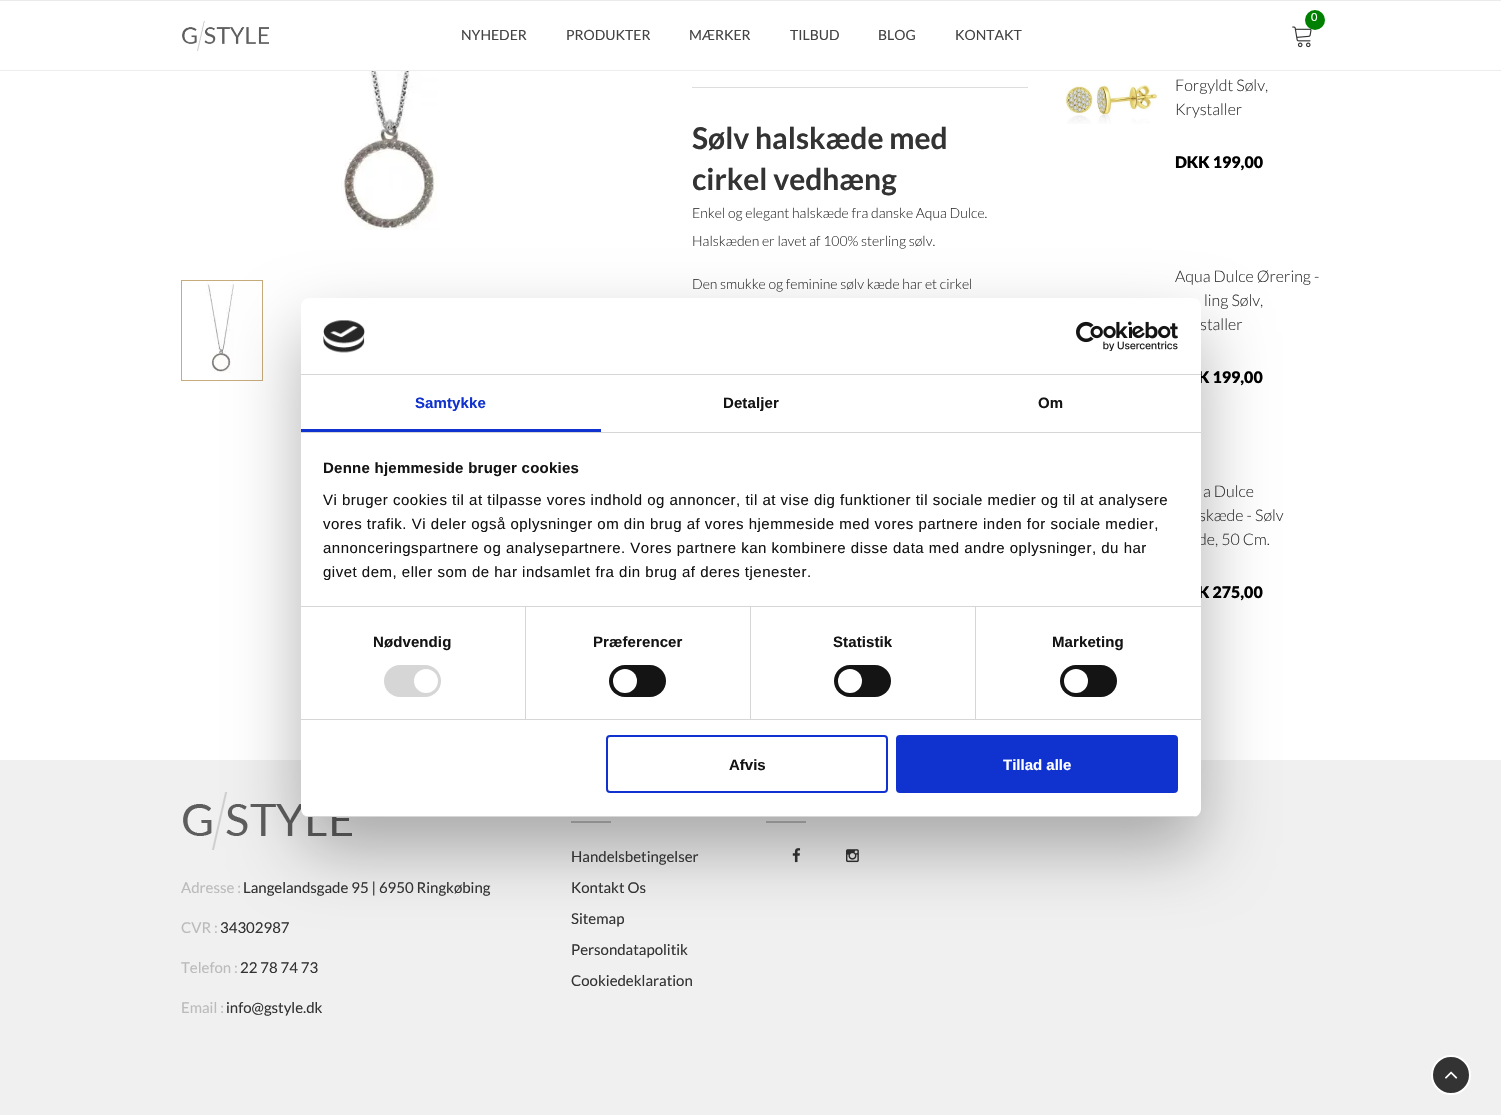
#include "include/core/SkBlurTypes.h"
#include "include/core/SkCanvas.h"
#include "include/core/SkData.h"
#include "include/core/SkFont.h"
#include "include/core/SkFontMgr.h"
#include "include/core/SkImage.h"
#include "include/core/SkMaskFilter.h"
#include "include/core/SkPaint.h"
#include "include/core/SkPathBuilder.h"
#include "include/core/SkTextBlob.h"
#include "include/effects/SkDashPathEffect.h"
#include "include/effects/SkGradientShader.h"
#include "include/utils/SkParsePath.h"

extern sk_sp<SkFontMgr> fontMgr;

static SkFont font(const char* family, int weight, float size, bool italic = false) {
    SkFontStyle style(weight, SkFontStyle::kNormal_Width,
        italic ? SkFontStyle::kItalic_Slant : SkFontStyle::kUpright_Slant);
    SkFont result(fontMgr->matchFamilyStyle(family, style), size);
    result.setSubpixel(true);
    return result;
}

static void drawLabel(SkCanvas* canvas, const char* s, float x, float y, const SkFont& font, SkColor color) {
    SkPaint ink(SkColor4f::FromColor(color));
    ink.setAntiAlias(true);
    canvas->drawString(s, x, y, font, ink);
}

static void drawTracked(SkCanvas* canvas, const char* s, float x, float y, const SkFont& font, const SkPaint& ink, float letter, float word) {
    std::vector<SkGlyphID> glyphs(font.countText(s, strlen(s), SkTextEncoding::kUTF8));
    std::vector<float> xs(glyphs.size());
    font.textToGlyphs(s, strlen(s), SkTextEncoding::kUTF8, glyphs);
    font.getXPos(glyphs, xs, x);
    float extra = 0;
    for (size_t i = 0; i < glyphs.size(); i++) {
        xs[i] += extra;
        extra += letter + word * (glyphs[i] == font.unicharToGlyph(' '));
    }
    canvas->drawTextBlob(SkTextBlob::MakeFromPosHGlyphs(glyphs, xs, y, font), 0, 0, ink);
}

static void fillRect(SkCanvas* canvas, float x, float y, float w, float h, SkColor color) {
    SkPaint ink(SkColor4f::FromColor(color));
    ink.setAntiAlias(true);
    canvas->drawRect(SkRect::MakeXYWH(x, y, w, h), ink);
}

static void fillRRect(SkCanvas* canvas, float x, float y, float w, float h, float radius, SkColor color) {
    SkPaint ink(SkColor4f::FromColor(color));
    ink.setAntiAlias(true);
    canvas->drawRoundRect(SkRect::MakeXYWH(x, y, w, h), radius, radius, ink);
}

static void drawPhoto(SkCanvas* canvas, const char* path, float x, float y, float w, float h) {
    auto image = SkImages::DeferredFromEncodedData(SkData::MakeFromFileName(path));
    canvas->drawImageRect(image, SkRect::MakeXYWH(x, y, w, h), SkSamplingOptions());
}

static SkPath parsePath(const char* data, bool evenOdd = false) {
    SkPath result = *SkParsePath::FromSVGString(data);
    if (evenOdd) result.setFillType(SkPathFillType::kEvenOdd);
    return result;
}

void draw(SkCanvas* canvas) {
    SkPaint paint;
    paint.setAntiAlias(true);
    canvas->clear(0xFFFFFFFF);
    fillRect(canvas, 0, 0, 1501, 1, 0xFFEBEBEB);
    fillRect(canvas, 0, 70, 1501, 1, 0xFFEDEDED);
    drawPhoto(canvas, "assets/img1.png", 1292, 26, 20, 22);
    paint.setColor(0xFF008000);
    canvas->drawCircle(1315, 20, 10, paint);
    SkFont font1 = font("Lato", 400, 11);
    drawLabel(canvas, "0", 1311, 21, font1, 0xFFFFFFFF);
    drawPhoto(canvas, "assets/img2.png", 182, 21, 87, 30);
    SkFont font2 = font("Lato", 400, 14);
    drawLabel(canvas, "NYHEDER", 461, 40, font2, 0xFF444444);
    drawLabel(canvas, "PRODUKTER", 566, 40, font2, 0xFF444444);
    drawLabel(canvas, "MÆRKER", 689, 40, font2, 0xFF444444);
    drawLabel(canvas, "TILBUD", 790, 40, font2, 0xFF444444);
    drawLabel(canvas, "BLOG", 878, 40, font2, 0xFF444444);
    drawLabel(canvas, "KONTAKT", 955, 40, font2, 0xFF444444);
    drawPhoto(canvas, "assets/img3.png", 341, 71, 96, 159);
    paint.setStroke(true);
    paint.setStrokeWidth(1);
    paint.setColor(0xFFC6AC7C);
    canvas->drawRect(SkRect::MakeXYWH(181.5f, 280.5f, 81, 100), paint);
    drawPhoto(canvas, "assets/img4.png", 206, 281, 28, 92);
    fillRect(canvas, 692, 87, 336, 1, 0xFFDDDDDD);
    SkFont font3 = font("Lato", 700, 30);
    drawLabel(canvas, "Sølv halskæde med", 692, 149, font3, 0xFF333333);
    drawLabel(canvas, "cirkel vedhæng", 692, 190, font3, 0xFF333333);
    SkFont font4 = font("Lato", 300, 14);
    drawLabel(canvas, "Enkel og elegant halskæde fra danske Aqua Dulce.", 692, 218, font4, 0xFF333333);
    drawLabel(canvas, "Halskæden er lavet af 100% sterling sølv.", 692, 246, font4, 0xFF333333);
    drawLabel(canvas, "Den smukke og feminine sølv kæde har et cirkel", 692, 289, font4, 0xFF333333);
    drawPhoto(canvas, "assets/img5.png", 1065, 85, 93, 39);
    SkFont font5 = font("Lato", 300, 16);
    drawLabel(canvas, "Forgyldt Sølv,", 1175, 91, font5, 0xFF333333);
    drawLabel(canvas, "Krystaller", 1175, 115, font5, 0xFF333333);
    SkFont font6 = font("Lato", 900, 16);
    drawLabel(canvas, "DKK 199,00", 1175, 168, font6, 0xFF000000);
    drawLabel(canvas, "Aqua Dulce Ørering -", 1175, 282, font5, 0xFF333333);
    drawLabel(canvas, "ling Sølv,", 1204, 306, font5, 0xFF333333);
    drawLabel(canvas, "staller", 1200, 330, font5, 0xFF333333);
    drawLabel(canvas, "K 199,00", 1198, 383, font6, 0xFF000000);
    drawLabel(canvas, "a Dulce", 1203, 497, font5, 0xFF333333);
    drawLabel(canvas, "skæde - Sølv", 1199, 521, font5, 0xFF333333);
    drawLabel(canvas, "de, 50 Cm.", 1198, 545, font5, 0xFF333333);
    drawLabel(canvas, "K 275,00", 1198, 598, font6, 0xFF000000);
    fillRect(canvas, 0, 760, 1501, 355, 0xFFF0F0F0);
    fillRect(canvas, 766, 821, 40, 2, 0xFFBBBBBB);
    drawPhoto(canvas, "assets/img8.png", 792, 848, 9, 15);
    drawPhoto(canvas, "assets/img9.png", 846, 849, 13, 14);
    drawPhoto(canvas, "assets/img10.png", 183, 792, 169, 58);
    fillRect(canvas, 571, 821, 40, 2, 0xFFBBBBBB);
    paint.setStroke(false);
    paint.setColor(0x4D000000);
    paint.setMaskFilter(SkMaskFilter::MakeBlur(kNormal_SkBlurStyle, 34));
    canvas->drawRoundRect(SkRect::MakeXYWH(301, 330, 900, 519), 8, 8, paint);
    paint.setMaskFilter(nullptr);
    fillRRect(canvas, 301, 298, 900, 519, 8, 0xFFFFFFFF);
    fillRect(canvas, 301, 374, 900, 1, 0xFFD6D6D6);
    drawPhoto(canvas, "assets/img6.png", 323, 320, 42, 33);
    drawPhoto(canvas, "assets/img7.png", 1076, 321, 102, 30);
    fillRect(canvas, 301, 432, 900, 1, 0xFFD6D6D6);
    fillRect(canvas, 301, 429, 300, 3, 0xFF1032CF);
    SkFont font7 = font("Liberation Sans", 700, 15);
    paint.setColor(0xFF1032CF);
    drawTracked(canvas, "Samtykke", 415, 408, font7, paint, 0.1f, 0);
    paint.setColor(0xFF141414);
    drawTracked(canvas, "Detaljer", 723, 408, font7, paint, 0.1f, 0);
    drawTracked(canvas, "Om", 1038, 408, font7, paint, 0.1f, 0);
    fillRect(canvas, 301, 606, 900, 1, 0xFFD6D6D6);
    drawTracked(canvas, "Denne hjemmeside bruger cookies", 323, 473, font7, paint, 0.25f, 0);
    SkFont font8 = font("Liberation Sans", 400, 15);
    drawTracked(canvas, "Vi bruger cookies til at tilpasse vores indhold og annoncer, til at vise dig funktioner til sociale medier og til at analysere", 323, 505, font8, paint, 0.5f, 0);
    drawTracked(canvas, "vores trafik. Vi deler også oplysninger om din brug af vores hjemmeside med vores partnere inden for sociale medier,", 323, 529, font8, paint, 0.5f, 0);
    drawTracked(canvas, "annonceringspartnere og analysepartnere. Vores partnere kan kombinere disse data med andre oplysninger, du har", 323, 553, font8, paint, 0.5f, 0);
    drawTracked(canvas, "givet dem, eller som de har indsamlet fra din brug af deres tjenester.", 323, 577, font8, paint, 0.5f, 0);
    fillRect(canvas, 301, 719, 900, 1, 0xFFD6D6D6);
    fillRect(canvas, 525, 607, 1, 112, 0xFFD6D6D6);
    drawTracked(canvas, "Nødvendig", 373, 647, font7, paint, 0.1f, 0);
    fillRRect(canvas, 384, 665, 57, 32, 16, 0xFFD6D6D6);
    paint.setColor(0xFFFFFFFF);
    canvas->drawCircle(426, 681, 12, paint);
    fillRect(canvas, 750, 607, 1, 112, 0xFFD6D6D6);
    paint.setColor(0xFF141414);
    drawTracked(canvas, "Præferencer", 593, 647, font7, paint, 0.1f, 0);
    fillRRect(canvas, 609, 665, 57, 32, 16, 0xFF141414);
    paint.setColor(0xFFFFFFFF);
    canvas->drawCircle(625, 681, 12, paint);
    fillRect(canvas, 975, 607, 1, 112, 0xFFD6D6D6);
    paint.setColor(0xFF141414);
    drawTracked(canvas, "Statistik", 833, 647, font7, paint, 0.1f, 0);
    fillRRect(canvas, 834, 665, 57, 32, 16, 0xFF141414);
    paint.setColor(0xFFFFFFFF);
    canvas->drawCircle(850, 681, 12, paint);
    paint.setColor(0xFF141414);
    drawTracked(canvas, "Marketing", 1052, 647, font7, paint, 0.1f, 0);
    fillRRect(canvas, 1060, 665, 57, 32, 16, 0xFF141414);
    paint.setColor(0xFFFFFFFF);
    canvas->drawCircle(1076, 681, 12, paint);
    canvas->save();
    canvas->clipPath(parsePath("M309 298H1193C1197.5 298 1201 301.5 1201 306V809C1201 813.5 1197.5 817 1193 817H309C304.5 817 301 813.5 301 809V306C301 301.5 304.5 298 309 298Z"), true);
    fillRect(canvas, 301, 816, 900, 1, 0xFFD6D6D6);
    canvas->restore();
    paint.setStroke(true);
    paint.setStrokeWidth(2);
    paint.setColor(0xFF1032CF);
    canvas->drawRoundRect(SkRect::MakeXYWH(607, 736, 280, 56), 3, 3, paint);
    drawLabel(canvas, "Afvis", 729, 770, font7, 0xFF141414);
    paint.setStroke(false);
    canvas->drawRoundRect(SkRect::MakeXYWH(897, 736, 280, 56), 3, 3, paint);
    paint.setStroke(true);
    canvas->drawRoundRect(SkRect::MakeXYWH(897, 736, 280, 56), 3, 3, paint);
    drawLabel(canvas, "Tillad alle", 1003, 770, font7, 0xFFFFFFFF);
    SkFont font9 = font("Lato", 400, 15);
    drawLabel(canvas, "Adresse :", 181, 893, font9, 0xFFBBBBBB);
    drawLabel(canvas, "Langelandsgade 95 | 6950 Ringkøbing", 243, 893, font9, 0xFF333333);
    drawLabel(canvas, "CVR :", 181, 933, font9, 0xFFBBBBBB);
    drawLabel(canvas, "34302987", 220, 933, font9, 0xFF333333);
    drawLabel(canvas, "Telefon :", 181, 973, font9, 0xFFBBBBBB);
    drawLabel(canvas, "22 78 74 73", 240, 973, font9, 0xFF333333);
    drawLabel(canvas, "Email :", 181, 1013, font9, 0xFFBBBBBB);
    drawLabel(canvas, "info@gstyle.dk", 226, 1013, font9, 0xFF333333);
    drawLabel(canvas, "Handelsbetingelser", 571, 862, font9, 0xFF333333);
    drawLabel(canvas, "Kontakt Os", 571, 893, font9, 0xFF333333);
    drawLabel(canvas, "Sitemap", 571, 924, font9, 0xFF333333);
    drawLabel(canvas, "Persondatapolitik", 571, 955, font9, 0xFF333333);
    drawLabel(canvas, "Cookiedeklaration", 571, 986, font9, 0xFF333333);
    paint.setStroke(false);
    paint.setColor(0xFF333333);
    canvas->drawCircle(1451, 1075, 19, paint);
    paint.setStroke(true);
    paint.setColor(0xFFFFFFFF);
    canvas->drawCircle(1451, 1075, 19, paint);
    drawPhoto(canvas, "assets/img11.png", 1445, 1071, 13, 8);
}
